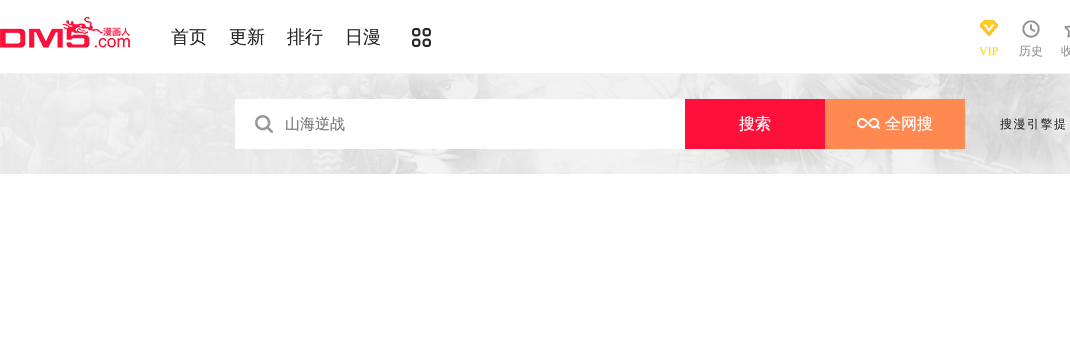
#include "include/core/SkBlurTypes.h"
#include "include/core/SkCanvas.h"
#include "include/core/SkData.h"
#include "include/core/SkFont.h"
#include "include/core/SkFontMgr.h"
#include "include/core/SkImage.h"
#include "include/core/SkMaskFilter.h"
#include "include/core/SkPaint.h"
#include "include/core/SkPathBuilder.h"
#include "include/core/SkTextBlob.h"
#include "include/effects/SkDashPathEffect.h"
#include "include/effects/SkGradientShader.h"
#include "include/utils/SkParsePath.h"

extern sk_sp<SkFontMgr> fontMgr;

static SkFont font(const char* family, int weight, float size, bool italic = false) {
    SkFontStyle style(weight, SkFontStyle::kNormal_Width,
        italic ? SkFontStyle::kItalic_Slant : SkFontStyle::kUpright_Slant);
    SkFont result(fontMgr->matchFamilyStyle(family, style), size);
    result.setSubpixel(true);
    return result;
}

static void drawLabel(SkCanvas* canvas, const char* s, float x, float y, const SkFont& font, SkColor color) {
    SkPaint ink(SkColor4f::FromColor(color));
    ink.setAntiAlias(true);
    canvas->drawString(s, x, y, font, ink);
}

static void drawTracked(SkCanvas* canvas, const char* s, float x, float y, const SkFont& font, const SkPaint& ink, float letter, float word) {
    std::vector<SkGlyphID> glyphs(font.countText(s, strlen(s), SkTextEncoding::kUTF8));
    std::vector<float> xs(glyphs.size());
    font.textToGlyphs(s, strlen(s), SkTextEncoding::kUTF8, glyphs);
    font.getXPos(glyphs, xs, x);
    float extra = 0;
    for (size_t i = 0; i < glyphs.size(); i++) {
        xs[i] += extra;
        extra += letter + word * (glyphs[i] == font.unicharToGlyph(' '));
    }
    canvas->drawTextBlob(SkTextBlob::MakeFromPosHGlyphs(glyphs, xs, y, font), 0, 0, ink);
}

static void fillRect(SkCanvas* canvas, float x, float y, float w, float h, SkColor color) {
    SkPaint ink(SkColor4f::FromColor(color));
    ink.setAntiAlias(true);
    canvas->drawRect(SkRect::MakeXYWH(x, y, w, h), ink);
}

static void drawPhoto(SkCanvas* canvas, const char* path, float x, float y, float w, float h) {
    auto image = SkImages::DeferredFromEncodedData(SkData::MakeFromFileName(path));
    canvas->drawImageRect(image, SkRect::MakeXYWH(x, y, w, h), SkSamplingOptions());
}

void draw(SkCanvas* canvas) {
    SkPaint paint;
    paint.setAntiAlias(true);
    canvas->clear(0xFFFFFFFF);
    fillRect(canvas, 0, 73, 1070, 1, 0xFFF3F3F3);
    drawPhoto(canvas, "assets/img1.png", 0, 17, 130, 31);
    SkFont font1 = font("WenQuanYi Zen Hei", 500, 18);
    drawLabel(canvas, "首页", 171, 43, font1, 0xFF252525);
    drawLabel(canvas, "更新", 229, 43, font1, 0xFF252525);
    drawLabel(canvas, "排行", 287, 43, font1, 0xFF252525);
    drawLabel(canvas, "日漫", 345, 43, font1, 0xFF252525);
    drawPhoto(canvas, "assets/img2.png", 412, 28, 19, 19);
    drawPhoto(canvas, "assets/img3.png", 980, 20, 18, 17);
    SkFont font2 = font("Liberation Serif", 400, 12);
    drawLabel(canvas, "VIP", 979, 55, font2, 0xFFFFD21A);
    drawPhoto(canvas, "assets/img4.png", 1022, 20, 18, 18);
    SkFont font3 = font("WenQuanYi Zen Hei", 500, 12);
    drawLabel(canvas, "历史", 1019, 55, font3, 0xFF929292);
    drawPhoto(canvas, "assets/img5.png", 1064, 25, 6, 13);
    drawLabel(canvas, "收", 1061, 55, font3, 0xFF929292);
    drawPhoto(canvas, "assets/img6.png", 0, 74, 1070, 100);
    fillRect(canvas, 235, 99, 450, 50, 0xFFFFFFFF);
    drawPhoto(canvas, "assets/img7.png", 255, 115, 18, 18);
    SkFont font4 = font("WenQuanYi Zen Hei", 500, 15);
    drawLabel(canvas, "山海逆战", 285, 129, font4, 0xFF757575);
    fillRect(canvas, 685, 99, 140, 50, 0xFFFD113A);
    SkFont font5 = font("WenQuanYi Zen Hei", 500, 16);
    drawLabel(canvas, "搜索", 739, 129, font5, 0xFFFFFFFF);
    fillRect(canvas, 825, 99, 140, 50, 0xFFFF8950);
    drawPhoto(canvas, "assets/img8.png", 857, 118, 23, 11);
    drawLabel(canvas, "全网搜", 885, 129, font5, 0xFFFFFFFF);
    paint.setColor(0xFF303030);
    drawTracked(canvas, "搜漫引擎提", 1000, 128, font3, paint, 1.5f, 0);
}
